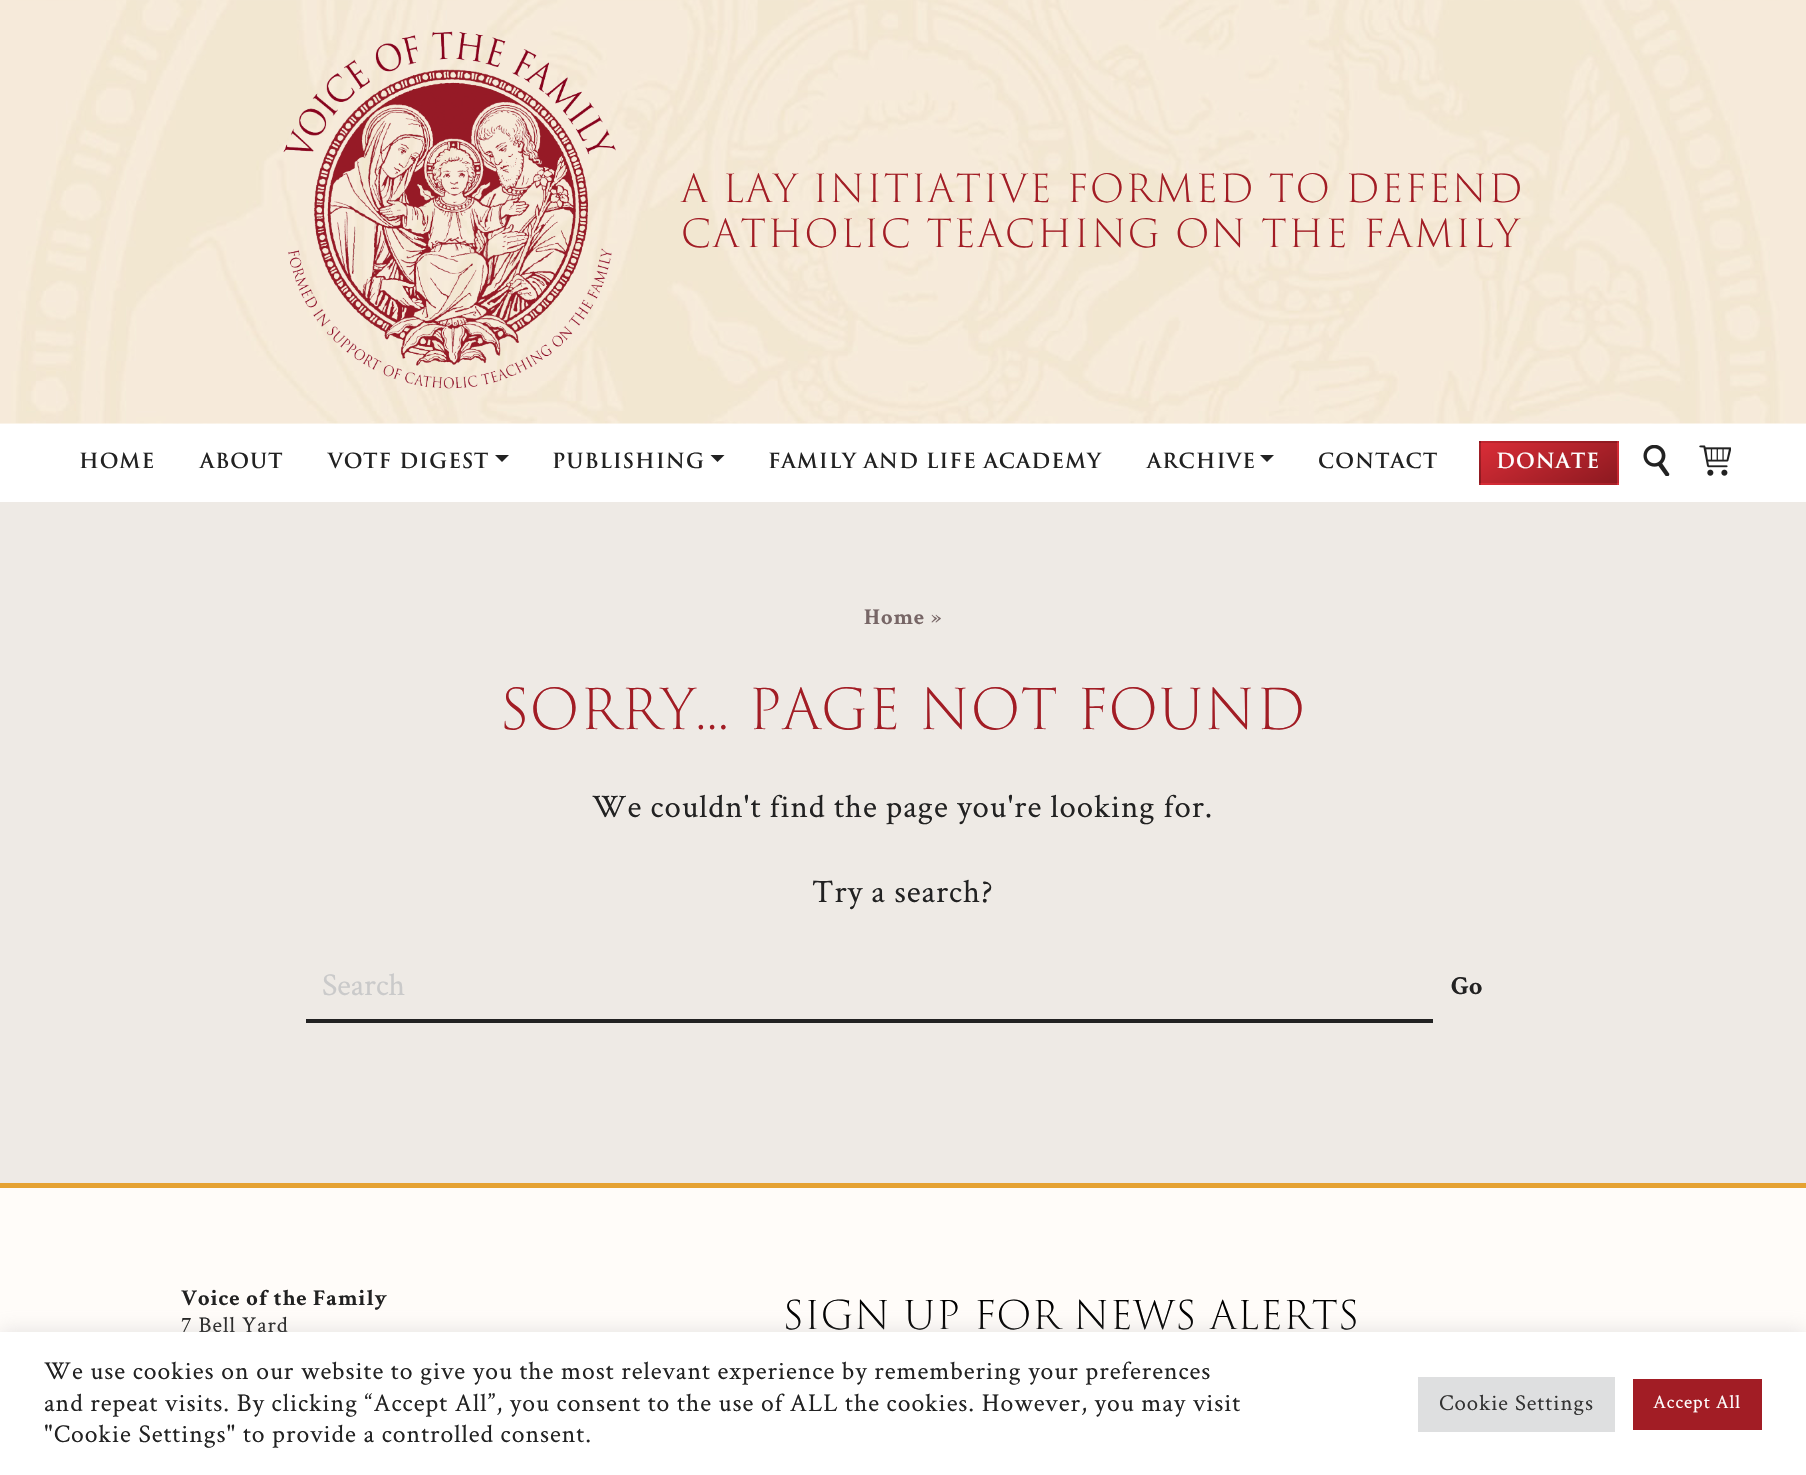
#include "include/core/SkBlurTypes.h"
#include "include/core/SkCanvas.h"
#include "include/core/SkData.h"
#include "include/core/SkFont.h"
#include "include/core/SkFontMgr.h"
#include "include/core/SkImage.h"
#include "include/core/SkMaskFilter.h"
#include "include/core/SkPaint.h"
#include "include/core/SkPathBuilder.h"
#include "include/core/SkTextBlob.h"
#include "include/effects/SkDashPathEffect.h"
#include "include/effects/SkGradientShader.h"
#include "include/utils/SkParsePath.h"

extern sk_sp<SkFontMgr> fontMgr;

static SkFont font(const char* family, int weight, float size, bool italic = false) {
    SkFontStyle style(weight, SkFontStyle::kNormal_Width,
        italic ? SkFontStyle::kItalic_Slant : SkFontStyle::kUpright_Slant);
    SkFont result(fontMgr->matchFamilyStyle(family, style), size);
    result.setSubpixel(true);
    return result;
}

static void drawLabel(SkCanvas* canvas, const char* s, float x, float y, const SkFont& font, SkColor color) {
    SkPaint ink(SkColor4f::FromColor(color));
    ink.setAntiAlias(true);
    canvas->drawString(s, x, y, font, ink);
}

static void drawTracked(SkCanvas* canvas, const char* s, float x, float y, const SkFont& font, const SkPaint& ink, float letter, float word) {
    std::vector<SkGlyphID> glyphs(font.countText(s, strlen(s), SkTextEncoding::kUTF8));
    std::vector<float> xs(glyphs.size());
    font.textToGlyphs(s, strlen(s), SkTextEncoding::kUTF8, glyphs);
    font.getXPos(glyphs, xs, x);
    float extra = 0;
    for (size_t i = 0; i < glyphs.size(); i++) {
        xs[i] += extra;
        extra += letter + word * (glyphs[i] == font.unicharToGlyph(' '));
    }
    canvas->drawTextBlob(SkTextBlob::MakeFromPosHGlyphs(glyphs, xs, y, font), 0, 0, ink);
}

static void fillRect(SkCanvas* canvas, float x, float y, float w, float h, SkColor color) {
    SkPaint ink(SkColor4f::FromColor(color));
    ink.setAntiAlias(true);
    canvas->drawRect(SkRect::MakeXYWH(x, y, w, h), ink);
}

static void drawPhoto(SkCanvas* canvas, const char* path, float x, float y, float w, float h) {
    auto image = SkImages::DeferredFromEncodedData(SkData::MakeFromFileName(path));
    canvas->drawImageRect(image, SkRect::MakeXYWH(x, y, w, h), SkSamplingOptions());
}

static SkPath parsePath(const char* data, bool evenOdd = false) {
    SkPath result = *SkParsePath::FromSVGString(data);
    if (evenOdd) result.setFillType(SkPathFillType::kEvenOdd);
    return result;
}

void draw(SkCanvas* canvas) {
    SkPaint paint;
    paint.setAntiAlias(true);
    canvas->clear(0xFFFFFCF9);
    drawPhoto(canvas, "assets/img1.png", 0, 0, 1806, 424);
    drawPhoto(canvas, "assets/img2.png", 283, 31, 333, 358);
    SkFont font1 = font("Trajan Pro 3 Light", 300, 37.7f);
    paint.setColor(0xFFA21D25);
    drawTracked(canvas, "A LAY INITIATIVE FORMED TO DEFEND", 681, 202, font1, paint, 1.6f, 0);
    drawTracked(canvas, "CATHOLIC TEACHING ON THE FAMILY", 681, 247, font1, paint, 1.6f, 0);
    fillRect(canvas, 0, 424, 1806, 78, 0xFFFFFFFF);
    SkFont font2 = font("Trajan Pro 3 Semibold", 600, 20.25f);
    paint.setColor(0xFF222222);
    drawTracked(canvas, "HOME", 79, 468, font2, paint, 0.97f, 0);
    drawTracked(canvas, "ABOUT", 200, 468, font2, paint, 0.97f, 0);
    drawTracked(canvas, "VOTF DIGEST", 328, 468, font2, paint, 0.97f, 0);
    canvas->drawPath(parsePath("M495 455H509L502 462Z"), paint);
    drawTracked(canvas, "PUBLISHING", 552, 468, font2, paint, 0.97f, 0);
    canvas->drawPath(parsePath("M710.5 455H724.5L717.5 462Z"), paint);
    drawTracked(canvas, "FAMILY AND LIFE ACADEMY", 768, 468, font2, paint, 0.97f, 0);
    drawTracked(canvas, "ARCHIVE", 1147, 468, font2, paint, 0.97f, 0);
    canvas->drawPath(parsePath("M1260 455H1274L1267 462Z"), paint);
    drawTracked(canvas, "CONTACT", 1318, 468, font2, paint, 0.97f, 0);
    {
        const SkColor colors[] = {0xFFD92D37, 0xFF8C1920};
        const float stops[] = {0, 1};
        const SkPoint ends[] = {{1386, 378}, {1438, 467}};
        paint.setShader(SkGradientShader::MakeLinear(ends, colors, stops, 2, SkTileMode::kClamp));
        paint.setAlpha(255);
    }
    canvas->drawRect(SkRect::MakeXYWH(1479, 441, 2, 2), paint);
    {
        const SkColor colors[] = {0xFFD92D37, 0xFF8C1920};
        const float stops[] = {0, 1};
        const SkPoint ends[] = {{1523, 378}, {1575, 467}};
        paint.setShader(SkGradientShader::MakeLinear(ends, colors, stops, 2, SkTileMode::kClamp));
        paint.setAlpha(255);
    }
    canvas->drawRect(SkRect::MakeXYWH(1481, 441, 136, 2), paint);
    {
        const SkColor colors[] = {0xFFD92D37, 0xFF8C1920};
        const float stops[] = {0, 1};
        const SkPoint ends[] = {{1659, 378}, {1711, 467}};
        paint.setShader(SkGradientShader::MakeLinear(ends, colors, stops, 2, SkTileMode::kClamp));
        paint.setAlpha(255);
    }
    canvas->drawRect(SkRect::MakeXYWH(1617, 441, 2, 2), paint);
    {
        const SkColor colors[] = {0xFFD92D37, 0xFF8C1920};
        const float stops[] = {0, 1};
        const SkPoint ends[] = {{1386, 418}, {1438, 508}};
        paint.setShader(SkGradientShader::MakeLinear(ends, colors, stops, 2, SkTileMode::kClamp));
        paint.setAlpha(255);
    }
    canvas->drawRect(SkRect::MakeXYWH(1479, 443, 2, 40), paint);
    {
        const SkColor colors[] = {0xFFD92D37, 0xFF8C1920};
        const float stops[] = {0, 1};
        const SkPoint ends[] = {{1523, 418}, {1575, 508}};
        paint.setShader(SkGradientShader::MakeLinear(ends, colors, stops, 2, SkTileMode::kClamp));
        paint.setAlpha(255);
    }
    canvas->drawRect(SkRect::MakeXYWH(1481, 443, 136, 40), paint);
    {
        const SkColor colors[] = {0xFFD92D37, 0xFF8C1920};
        const float stops[] = {0, 1};
        const SkPoint ends[] = {{1659, 418}, {1711, 508}};
        paint.setShader(SkGradientShader::MakeLinear(ends, colors, stops, 2, SkTileMode::kClamp));
        paint.setAlpha(255);
    }
    canvas->drawRect(SkRect::MakeXYWH(1617, 443, 2, 40), paint);
    {
        const SkColor colors[] = {0xFFD92D37, 0xFF8C1920};
        const float stops[] = {0, 1};
        const SkPoint ends[] = {{1386, 458}, {1438, 548}};
        paint.setShader(SkGradientShader::MakeLinear(ends, colors, stops, 2, SkTileMode::kClamp));
        paint.setAlpha(255);
    }
    canvas->drawRect(SkRect::MakeXYWH(1479, 483, 2, 2), paint);
    {
        const SkColor colors[] = {0xFFD92D37, 0xFF8C1920};
        const float stops[] = {0, 1};
        const SkPoint ends[] = {{1523, 458}, {1575, 548}};
        paint.setShader(SkGradientShader::MakeLinear(ends, colors, stops, 2, SkTileMode::kClamp));
        paint.setAlpha(255);
    }
    canvas->drawRect(SkRect::MakeXYWH(1481, 483, 136, 2), paint);
    {
        const SkColor colors[] = {0xFFD92D37, 0xFF8C1920};
        const float stops[] = {0, 1};
        const SkPoint ends[] = {{1659, 458}, {1711, 548}};
        paint.setShader(SkGradientShader::MakeLinear(ends, colors, stops, 2, SkTileMode::kClamp));
        paint.setAlpha(255);
    }
    canvas->drawRect(SkRect::MakeXYWH(1617, 483, 2, 2), paint);
    paint.setShader(nullptr);
    paint.setColor(0xFFFEFEFE);
    drawTracked(canvas, "DONATE", 1496, 468, font2, paint, 0.97f, 0);
    drawPhoto(canvas, "assets/img3.png", 1643, 445, 27, 31);
    drawPhoto(canvas, "assets/img4.png", 1699, 445, 32, 31);
    fillRect(canvas, 0, 502, 1806, 681, 0xFFEEEAE5);
    SkFont font3 = font("Crimson Text", 700, 22.5f);
    paint.setColor(0xFF776666);
    drawTracked(canvas, "Home", 864, 624, font3, paint, 0.97f, 0);
    SkFont font4 = font("Crimson Text", 400, 22.5f);
    drawTracked(canvas, "»", 931, 624, font4, paint, 0.97f, 0);
    SkFont font5 = font("Trajan Pro 3 Light", 300, 54.75f);
    paint.setColor(0xFFA21D25);
    drawTracked(canvas, "SORRY... PAGE NOT FOUND", 500, 729, font5, paint, 0.6f, 0);
    SkFont font6 = font("Crimson Text", 400, 32.8f);
    paint.setColor(0xFF222222);
    drawTracked(canvas, "We couldn't find the page you're looking for.", 592, 817, font6, paint, 0.97f, 0);
    drawTracked(canvas, "Try a search?", 812, 902, font6, paint, 0.97f, 0);
    fillRect(canvas, 306, 1019, 1127, 4, 0xFF222222);
    SkFont font7 = font("Crimson Text", 400, 32);
    drawLabel(canvas, "Search", 322, 995, font7, 0xFFCACACA);
    SkFont font8 = font("Crimson Text", 700, 26);
    drawLabel(canvas, "Go", 1451, 994, font8, 0xFF222222);
    fillRect(canvas, 0, 1183, 1806, 5, 0xFFE5A232);
    drawTracked(canvas, "Voice of the Family", 181, 1305, font3, paint, 0.97f, 0);
    drawTracked(canvas, "7 Bell Yard", 181, 1332, font4, paint, 0.97f, 0);
    SkFont font9 = font("Trajan Pro 3 Light", 300, 38.5f);
    paint.setColor(0xFF000000);
    drawTracked(canvas, "SIGN UP FOR NEWS ALERTS", 783, 1329, font9, paint, 0.6f, 0);
    paint.setColor(0x4DACABAB);
    paint.setMaskFilter(SkMaskFilter::MakeBlur(kNormal_SkBlurStyle, 9));
    canvas->drawRect(SkRect::MakeXYWH(0, 1330, 1806, 144), paint);
    paint.setMaskFilter(nullptr);
    fillRect(canvas, 0, 1332, 1806, 143, 0xFFFFFFFF);
    SkFont font10 = font("Crimson Text", 400, 25.65f);
    paint.setColor(0xFF222222);
    drawTracked(canvas, "We use cookies on our website to give you the most relevant experience by remembering your preferences", 44, 1379, font10, paint, 0.97f, 0);
    drawTracked(canvas, "and repeat visits. By clicking “Accept All”, you consent to the use of ALL the cookies. However, you may visit", 44, 1411, font10, paint, 0.97f, 0);
    drawTracked(canvas, "\"Cookie Settings\" to provide a controlled consent.", 44, 1442, font10, paint, 0.97f, 0);
    fillRect(canvas, 1418, 1377, 197, 55, 0xFFDEDFE0);
    SkFont font11 = font("Crimson Text", 400, 22.75f);
    paint.setColor(0xFF333333);
    drawTracked(canvas, "Cookie Settings", 1439, 1410, font11, paint, 0.97f, 0);
    fillRect(canvas, 1633, 1379, 129, 51, 0xFFA21D25);
    SkFont font12 = font("Crimson Text", 400, 19.25f);
    paint.setColor(0xFFFEFEFE);
    drawTracked(canvas, "Accept All", 1653, 1408, font12, paint, 0.97f, 0);
}
